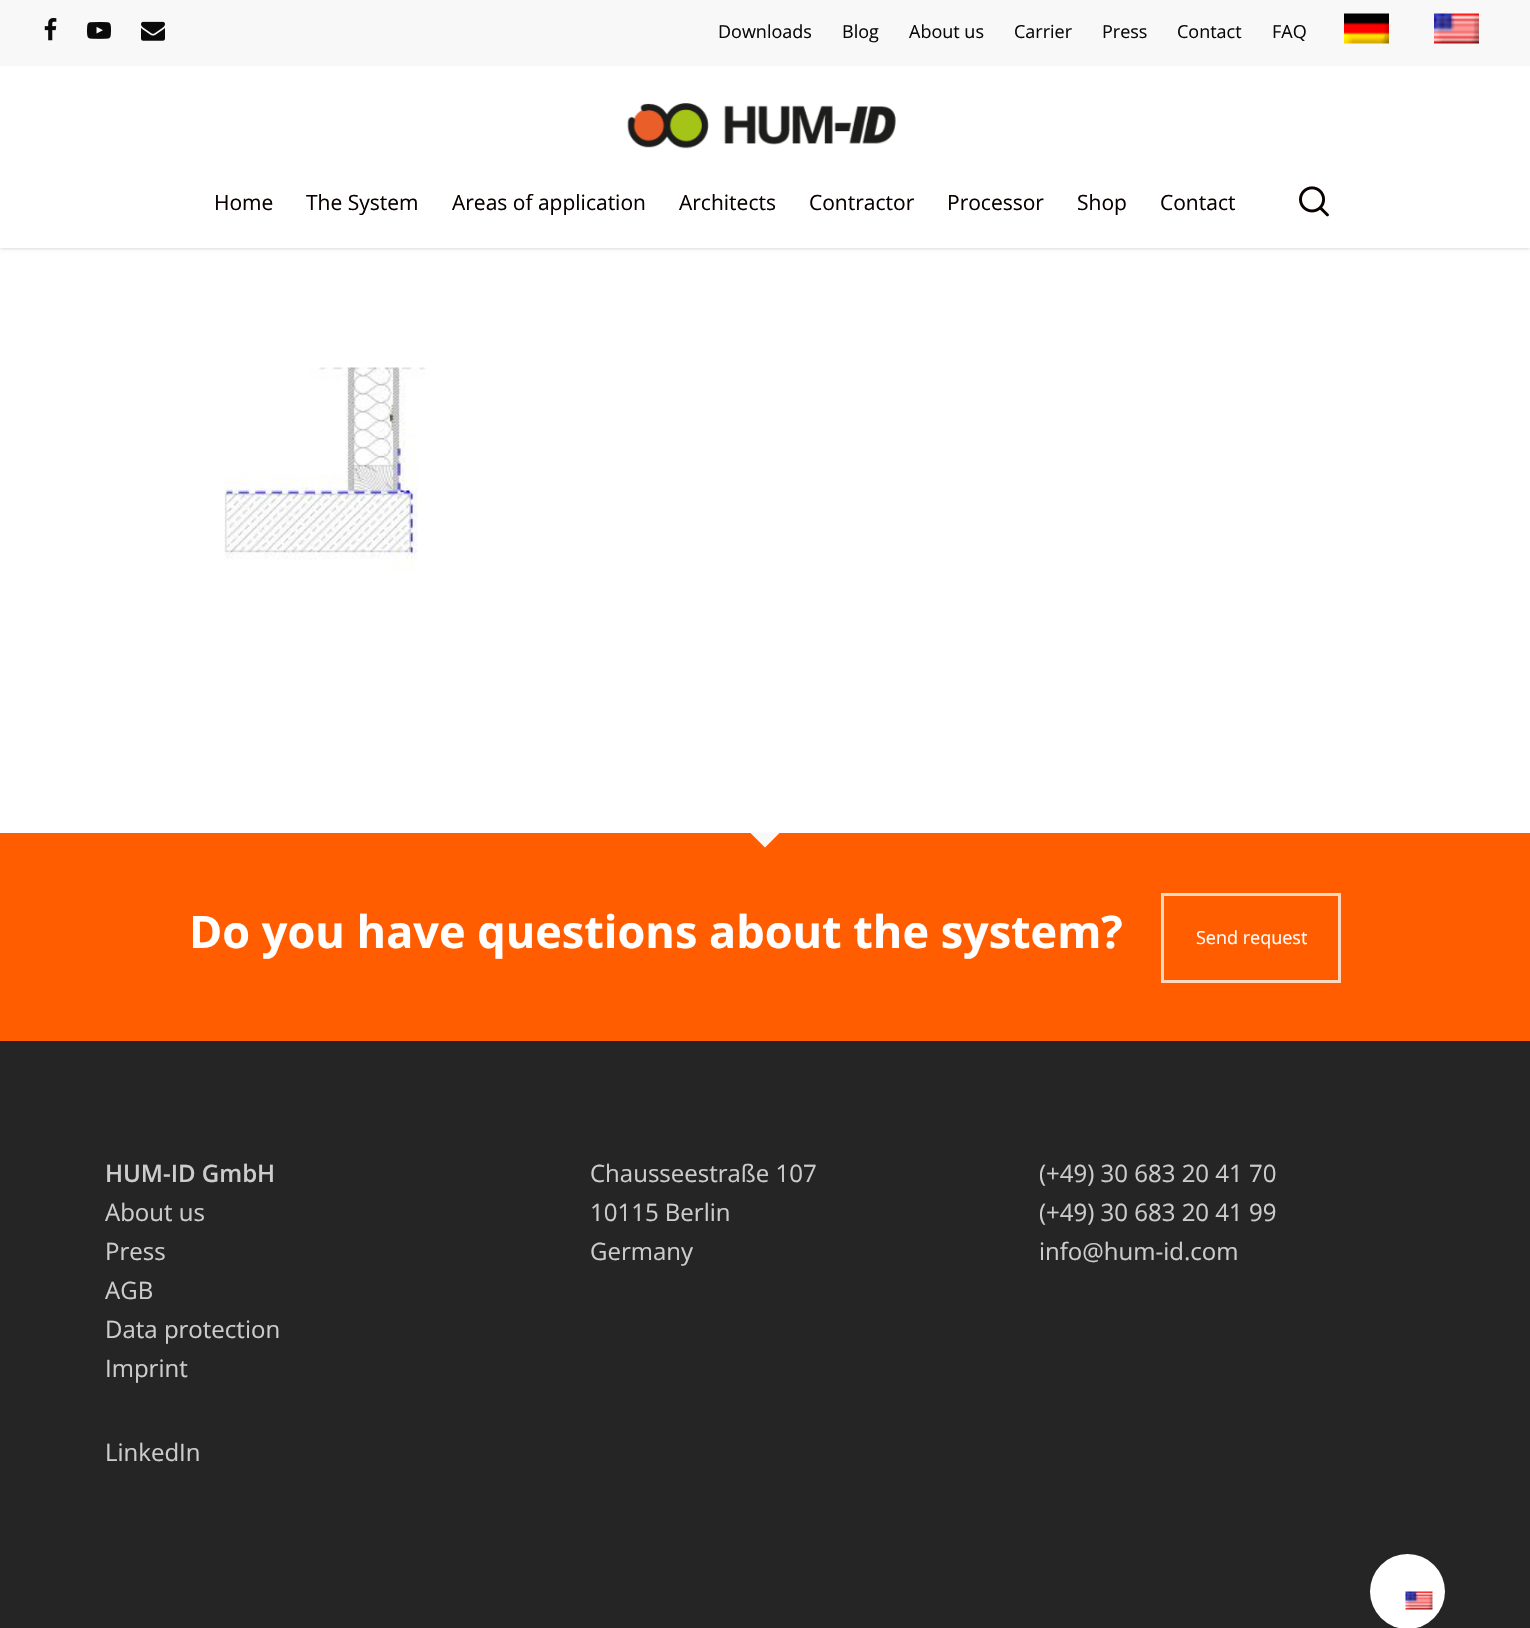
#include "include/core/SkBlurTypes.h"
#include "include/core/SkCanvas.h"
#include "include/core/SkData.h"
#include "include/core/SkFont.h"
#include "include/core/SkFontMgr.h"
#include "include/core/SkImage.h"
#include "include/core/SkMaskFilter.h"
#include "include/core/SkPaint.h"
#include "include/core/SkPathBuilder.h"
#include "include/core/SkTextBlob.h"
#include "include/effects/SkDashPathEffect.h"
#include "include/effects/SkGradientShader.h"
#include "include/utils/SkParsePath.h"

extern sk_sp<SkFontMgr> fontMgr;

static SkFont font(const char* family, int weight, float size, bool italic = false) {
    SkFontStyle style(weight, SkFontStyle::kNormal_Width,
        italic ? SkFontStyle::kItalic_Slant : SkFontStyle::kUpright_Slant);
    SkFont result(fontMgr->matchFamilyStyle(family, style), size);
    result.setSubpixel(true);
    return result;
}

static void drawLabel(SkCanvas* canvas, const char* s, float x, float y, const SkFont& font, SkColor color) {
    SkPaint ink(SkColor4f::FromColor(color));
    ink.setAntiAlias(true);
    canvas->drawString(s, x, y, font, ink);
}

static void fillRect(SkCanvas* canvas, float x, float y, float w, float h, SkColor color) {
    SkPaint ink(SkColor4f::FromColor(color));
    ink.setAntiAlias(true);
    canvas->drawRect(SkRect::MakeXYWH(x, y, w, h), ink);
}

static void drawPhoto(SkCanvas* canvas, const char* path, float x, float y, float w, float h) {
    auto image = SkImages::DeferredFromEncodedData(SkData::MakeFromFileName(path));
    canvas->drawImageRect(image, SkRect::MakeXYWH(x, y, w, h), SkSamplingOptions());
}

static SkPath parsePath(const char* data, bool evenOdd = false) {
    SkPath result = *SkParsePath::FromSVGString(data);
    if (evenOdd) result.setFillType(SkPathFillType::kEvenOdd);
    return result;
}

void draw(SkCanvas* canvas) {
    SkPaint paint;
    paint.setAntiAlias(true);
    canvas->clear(0xFFFFFFFF);
    paint.setColor(0x38000000);
    paint.setMaskFilter(SkMaskFilter::MakeBlur(kNormal_SkBlurStyle, 2));
    canvas->drawRect(SkRect::MakeXYWH(0, 0, 1530, 248), paint);
    paint.setMaskFilter(nullptr);
    fillRect(canvas, 0, 66, 1530, 182, 0xFFFFFFFF);
    fillRect(canvas, 0, 0, 1530, 66, 0xFFF8F8F8);
    drawPhoto(canvas, "assets/img1.png", 44, 18, 13, 23);
    drawPhoto(canvas, "assets/img2.png", 87, 22, 24, 17);
    drawPhoto(canvas, "assets/img3.png", 141, 21, 24, 20);
    SkFont font1 = font("Open Sans", 400, 18);
    drawLabel(canvas, "Downloads", 718, 38, font1, 0xFF0A0A0A);
    drawLabel(canvas, "Blog", 842, 38, font1, 0xFF0A0A0A);
    drawLabel(canvas, "About us", 909, 38, font1, 0xFF0A0A0A);
    drawLabel(canvas, "Carrier", 1014, 38, font1, 0xFF0A0A0A);
    drawLabel(canvas, "Press", 1102, 38, font1, 0xFF0A0A0A);
    drawLabel(canvas, "Contact", 1177, 38, font1, 0xFF0A0A0A);
    drawLabel(canvas, "FAQ", 1272, 38, font1, 0xFF0A0A0A);
    drawPhoto(canvas, "assets/img4.png", 1344, 13, 45, 31);
    drawPhoto(canvas, "assets/img5.png", 1434, 13, 45, 31);
    drawPhoto(canvas, "assets/img6.png", 627, 103, 269, 46);
    SkFont font2 = font("Open Sans", 400, 21);
    drawLabel(canvas, "Home", 214, 210, font2, 0xFF0A0000);
    drawLabel(canvas, "The System", 306, 210, font2, 0xFF0A0000);
    drawLabel(canvas, "Areas of application", 452, 210, font2, 0xFF0A0000);
    drawLabel(canvas, "Architects", 679, 210, font2, 0xFF0A0000);
    drawLabel(canvas, "Contractor", 809, 210, font2, 0xFF0A0000);
    drawLabel(canvas, "Processor", 947, 210, font2, 0xFF0A0000);
    drawLabel(canvas, "Shop", 1077, 210, font2, 0xFF0A0000);
    drawLabel(canvas, "Contact", 1160, 210, font2, 0xFF0A0000);
    drawPhoto(canvas, "assets/img7.png", 1299, 186, 30, 31);
    drawPhoto(canvas, "assets/img8.png", 224, 367, 202, 205);
    fillRect(canvas, 0, 1041, 1530, 587, 0xFF252525);
    fillRect(canvas, 0, 833, 1530, 208, 0xFFFF5D00);
    paint.setColor(0xFFF8F8F8);
    canvas->drawPath(parsePath("M750 832.5H780L765 847.5Z"), paint);
    SkFont font3 = font("Open Sans", 700, 45);
    drawLabel(canvas, "Do you have questions about the system?", 189, 948, font3, 0xFFFFFFFF);
    paint.setStroke(true);
    paint.setStrokeWidth(3);
    paint.setColor(0xFFFFD7BF);
    canvas->drawRect(SkRect::MakeXYWH(1162.5f, 894.5f, 177, 87), paint);
    drawLabel(canvas, "Send request", 1196, 944, font1, 0xFFFFFFFF);
    SkFont font4 = font("Open Sans", 600, 24);
    drawLabel(canvas, "HUM-ID GmbH", 105, 1182, font4, 0xFFCCCCCC);
    SkFont font5 = font("Open Sans", 400, 24);
    drawLabel(canvas, "About us", 105, 1221, font5, 0xFFCCCCCC);
    drawLabel(canvas, "Press", 105, 1260, font5, 0xFFCCCCCC);
    drawLabel(canvas, "AGB", 105, 1299, font5, 0xFFCCCCCC);
    drawLabel(canvas, "Data protection", 105, 1338, font5, 0xFFCCCCCC);
    drawLabel(canvas, "Imprint", 105, 1377, font5, 0xFFCCCCCC);
    drawLabel(canvas, "LinkedIn", 105, 1461, font5, 0xFFCCCCCC);
    drawLabel(canvas, "Chausseestraße 107", 590, 1182, font5, 0xFFCCCCCC);
    drawLabel(canvas, "10115 Berlin", 590, 1221, font5, 0xFFCCCCCC);
    drawLabel(canvas, "Germany", 590, 1260, font5, 0xFFCCCCCC);
    drawLabel(canvas, "(+49) 30 683 20 41 70", 1039, 1182, font5, 0xFFCCCCCC);
    drawLabel(canvas, "(+49) 30 683 20 41 99", 1039, 1221, font5, 0xFFCCCCCC);
    drawLabel(canvas, "info@hum-id.com", 1039, 1260, font5, 0xFFCCCCCC);
    paint.setStroke(false);
    paint.setColor(0xFFFFFFFF);
    canvas->drawCircle(1407.5f, 1591.5f, 37.5f, paint);
    drawPhoto(canvas, "assets/img9.png", 1405, 1591, 28, 19);
}
